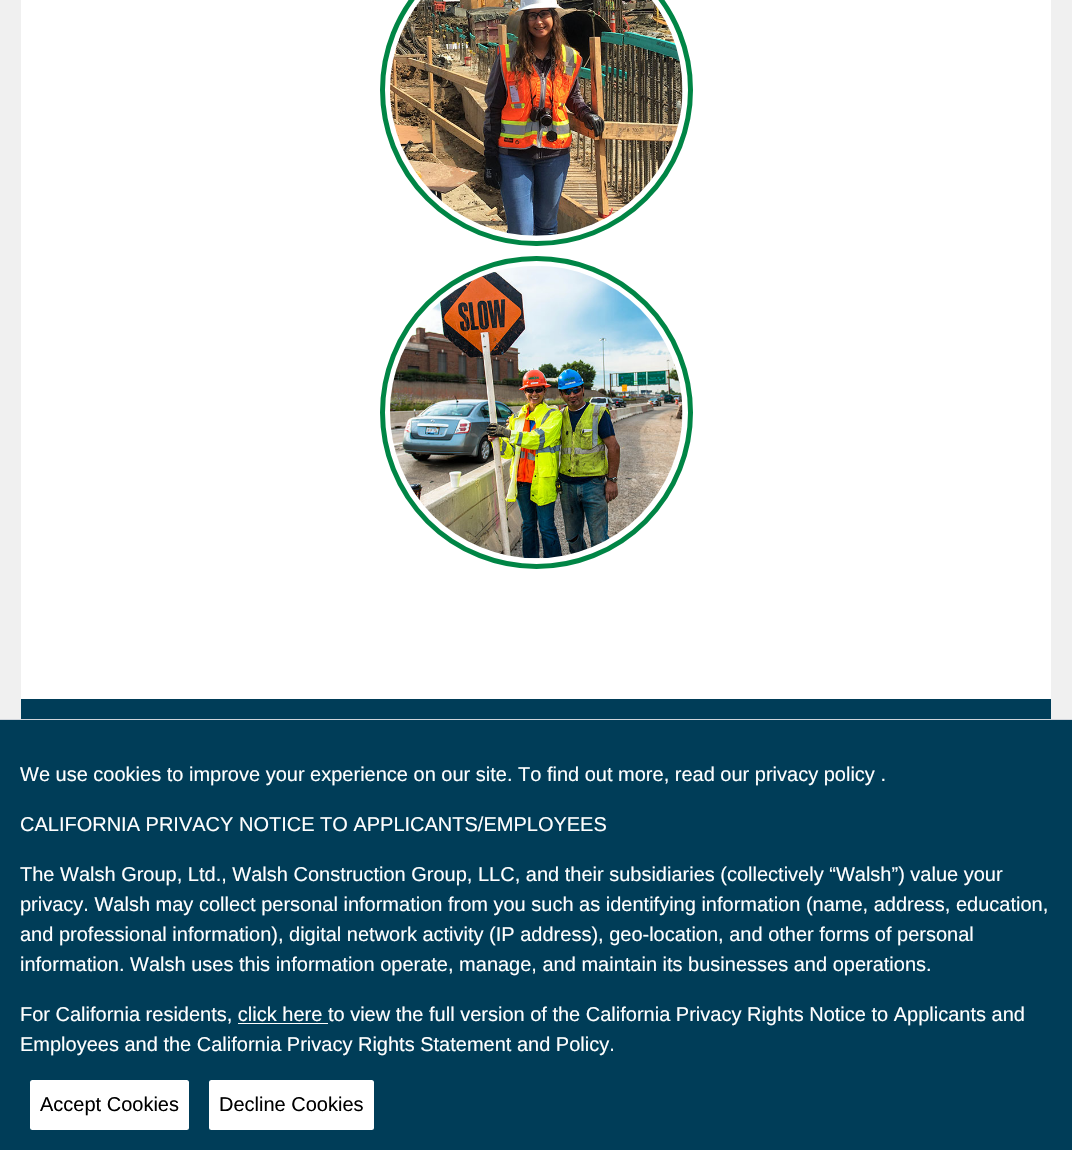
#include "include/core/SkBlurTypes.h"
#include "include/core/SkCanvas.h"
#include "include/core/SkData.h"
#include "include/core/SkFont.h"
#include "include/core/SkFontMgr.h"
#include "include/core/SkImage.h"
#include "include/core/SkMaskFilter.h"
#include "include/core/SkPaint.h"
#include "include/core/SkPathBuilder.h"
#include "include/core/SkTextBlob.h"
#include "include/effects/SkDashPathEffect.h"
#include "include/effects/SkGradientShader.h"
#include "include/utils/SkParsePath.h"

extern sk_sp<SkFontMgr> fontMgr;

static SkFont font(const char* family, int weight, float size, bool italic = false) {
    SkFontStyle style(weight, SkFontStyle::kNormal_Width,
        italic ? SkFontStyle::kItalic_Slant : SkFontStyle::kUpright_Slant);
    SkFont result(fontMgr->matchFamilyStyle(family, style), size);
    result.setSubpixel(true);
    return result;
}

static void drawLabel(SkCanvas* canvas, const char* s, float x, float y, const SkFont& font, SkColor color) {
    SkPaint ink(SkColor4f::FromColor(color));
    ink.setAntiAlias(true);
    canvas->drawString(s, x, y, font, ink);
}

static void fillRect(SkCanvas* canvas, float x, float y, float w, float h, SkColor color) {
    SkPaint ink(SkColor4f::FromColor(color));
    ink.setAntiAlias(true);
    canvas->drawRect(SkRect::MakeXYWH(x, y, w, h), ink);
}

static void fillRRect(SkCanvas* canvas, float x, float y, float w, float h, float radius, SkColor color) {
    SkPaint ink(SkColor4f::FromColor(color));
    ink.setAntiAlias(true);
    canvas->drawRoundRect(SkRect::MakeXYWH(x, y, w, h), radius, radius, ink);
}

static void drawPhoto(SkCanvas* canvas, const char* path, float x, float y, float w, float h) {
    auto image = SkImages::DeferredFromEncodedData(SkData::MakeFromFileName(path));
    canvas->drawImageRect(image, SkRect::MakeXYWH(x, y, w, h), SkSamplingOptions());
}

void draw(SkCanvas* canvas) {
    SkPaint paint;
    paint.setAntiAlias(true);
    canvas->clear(0xFFF0F0F0);
    fillRect(canvas, 21, 0, 1030, 699, 0xFFFFFFFF);
    paint.setStroke(true);
    paint.setStrokeWidth(5);
    paint.setColor(0xFF008545);
    canvas->drawRoundRect(SkRect::MakeXYWH(382.5f, -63.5f, 308, 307), 153.5f, 153.5f, paint);
    drawPhoto(canvas, "assets/img1.png", 390, 0, 293, 236);
    canvas->drawCircle(536.5f, 412.5f, 154, paint);
    drawPhoto(canvas, "assets/img2.png", 390, 266, 293, 293);
    fillRect(canvas, 21, 699, 1030, 20, 0xFF003D58);
    fillRect(canvas, 0, 720, 1072, 430, 0xFF003D58);
    fillRect(canvas, 0, 719, 1072, 1, 0xFFD1D5DB);
    SkFont font1 = font("Liberation Sans", 400, 20);
    drawLabel(canvas, "We use cookies to improve your experience on our site. To find out more, read our privacy policy .", 20, 781, font1, 0xFFFFFFFF);
    drawLabel(canvas, "CALIFORNIA PRIVACY NOTICE TO APPLICANTS/EMPLOYEES", 20, 831, font1, 0xFFFFFFFF);
    drawLabel(canvas, "The Walsh Group, Ltd., Walsh Construction Group, LLC, and their subsidiaries (collectively “Walsh”) value your", 20, 881, font1, 0xFFFFFFFF);
    drawLabel(canvas, "privacy. Walsh may collect personal information from you such as identifying information (name, address, education,", 20, 911, font1, 0xFFFFFFFF);
    drawLabel(canvas, "and professional information), digital network activity (IP address), geo-location, and other forms of personal", 20, 941, font1, 0xFFFFFFFF);
    drawLabel(canvas, "information. Walsh uses this information operate, manage, and maintain its businesses and operations.", 20, 971, font1, 0xFFFFFFFF);
    drawLabel(canvas, "For California residents, click here to view the full version of the California Privacy Rights Notice to Applicants and", 20, 1021, font1, 0xFFFFFFFF);
    fillRect(canvas, 238, 1023, 90, 1, 0xFFFFFFFF);
    drawLabel(canvas, "Employees and the California Privacy Rights Statement and Policy.", 20, 1051, font1, 0xFFFFFFFF);
    fillRRect(canvas, 30, 1080, 159, 50, 2.5f, 0xFFFFFFFF);
    drawLabel(canvas, "Accept Cookies", 40, 1111, font1, 0xFF000000);
    fillRRect(canvas, 209, 1080, 165, 50, 2.5f, 0xFFFFFFFF);
    drawLabel(canvas, "Decline Cookies", 219, 1111, font1, 0xFF000000);
}
